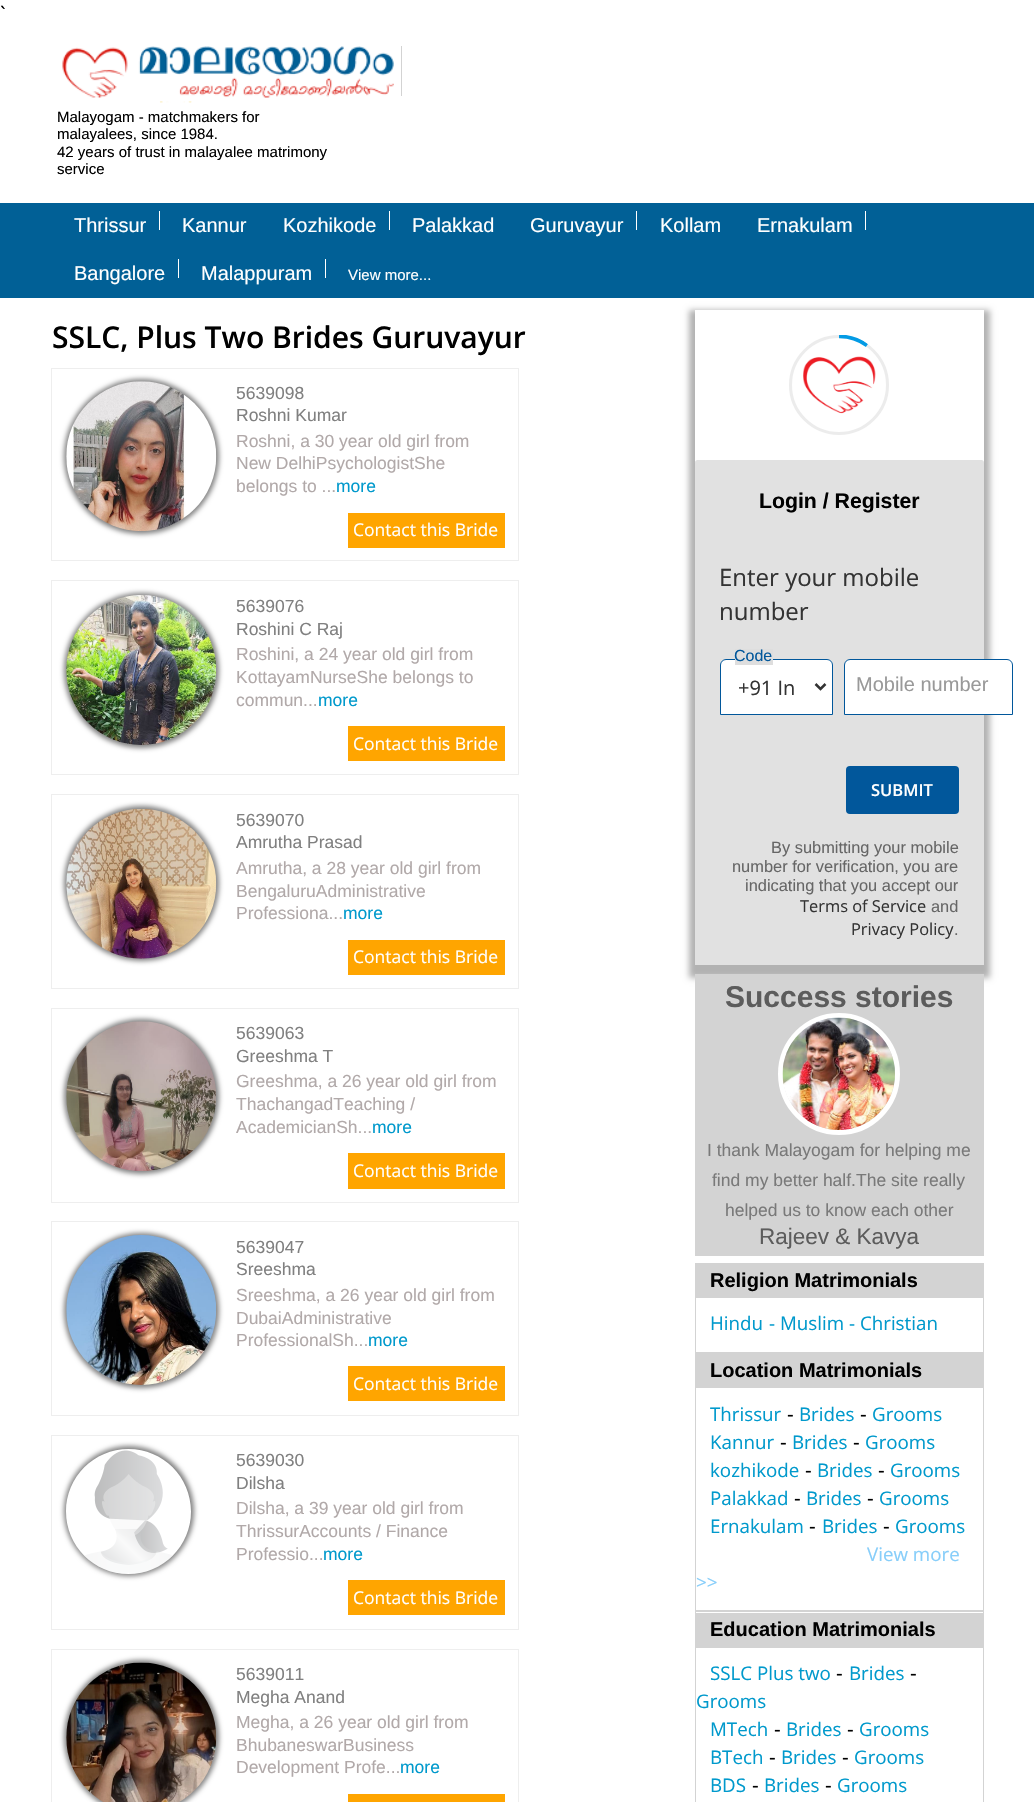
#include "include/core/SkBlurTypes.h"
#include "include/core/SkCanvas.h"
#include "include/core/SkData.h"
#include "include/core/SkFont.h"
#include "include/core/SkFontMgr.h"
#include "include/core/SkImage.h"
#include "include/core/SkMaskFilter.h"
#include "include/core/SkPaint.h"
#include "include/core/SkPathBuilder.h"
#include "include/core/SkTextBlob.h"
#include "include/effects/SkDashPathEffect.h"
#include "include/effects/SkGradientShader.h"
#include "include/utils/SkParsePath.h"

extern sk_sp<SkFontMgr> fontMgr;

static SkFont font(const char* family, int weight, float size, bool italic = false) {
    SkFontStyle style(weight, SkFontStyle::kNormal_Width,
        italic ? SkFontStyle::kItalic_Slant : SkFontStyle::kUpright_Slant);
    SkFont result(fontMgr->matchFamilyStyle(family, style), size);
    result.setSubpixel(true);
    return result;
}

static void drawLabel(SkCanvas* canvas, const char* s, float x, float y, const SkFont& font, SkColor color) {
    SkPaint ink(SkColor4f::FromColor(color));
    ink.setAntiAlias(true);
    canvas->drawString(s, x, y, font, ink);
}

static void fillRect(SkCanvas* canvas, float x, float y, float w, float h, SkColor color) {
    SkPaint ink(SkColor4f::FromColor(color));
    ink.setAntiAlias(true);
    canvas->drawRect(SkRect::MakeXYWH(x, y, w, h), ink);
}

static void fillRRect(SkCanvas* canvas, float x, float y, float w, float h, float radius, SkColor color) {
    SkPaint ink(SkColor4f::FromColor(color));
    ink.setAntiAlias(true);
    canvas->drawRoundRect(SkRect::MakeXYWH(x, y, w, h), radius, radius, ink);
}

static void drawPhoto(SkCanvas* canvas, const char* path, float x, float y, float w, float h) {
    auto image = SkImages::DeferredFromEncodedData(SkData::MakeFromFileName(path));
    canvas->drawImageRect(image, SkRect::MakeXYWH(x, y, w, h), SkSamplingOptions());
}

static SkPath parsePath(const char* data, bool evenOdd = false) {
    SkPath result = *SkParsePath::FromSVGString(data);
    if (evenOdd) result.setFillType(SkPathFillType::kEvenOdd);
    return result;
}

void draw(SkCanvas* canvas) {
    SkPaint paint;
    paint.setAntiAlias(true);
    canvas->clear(0xFFFFFFFF);
    SkFont font1 = font("Open Sans", 400, 20);
    drawLabel(canvas, "`", 0, 21, font1, 0xFF000000);
    drawPhoto(canvas, "assets/img1.png", 62, 46, 332, 57);
    fillRect(canvas, 401, 46, 1, 50, 0xFFD3D3D3);
    SkFont font2 = font("Liberation Sans", 400, 15);
    drawLabel(canvas, "Malayogam - matchmakers for", 57, 122, font2, 0xFF000000);
    drawLabel(canvas, "malayalees, since 1984.", 57, 139, font2, 0xFF000000);
    drawLabel(canvas, "42 years of trust in malayalee matrimony", 57, 157, font2, 0xFF000000);
    drawLabel(canvas, "service", 57, 174, font2, 0xFF000000);
    fillRect(canvas, 0, 203, 1034, 95, 0xFF016096);
    SkFont font3 = font("Liberation Sans", 400, 20);
    drawLabel(canvas, "Thrissur", 74, 232, font3, 0xFFFFFFFF);
    fillRect(canvas, 159, 211, 1, 19, 0xFFFFFFFF);
    drawLabel(canvas, "Kannur", 182, 232, font3, 0xFFFFFFFF);
    drawLabel(canvas, "Kozhikode", 283, 232, font3, 0xFFFFFFFF);
    fillRect(canvas, 389, 211, 1, 19, 0xFFFFFFFF);
    drawLabel(canvas, "Palakkad", 412, 232, font3, 0xFFFFFFFF);
    drawLabel(canvas, "Guruvayur", 530, 232, font3, 0xFFFFFFFF);
    fillRect(canvas, 636, 211, 1, 19, 0xFFFFFFFF);
    drawLabel(canvas, "Kollam", 660, 232, font3, 0xFFFFFFFF);
    drawLabel(canvas, "Ernakulam", 757, 232, font3, 0xFFFFFFFF);
    fillRect(canvas, 865, 211, 1, 19, 0xFFFFFFFF);
    drawLabel(canvas, "Bangalore", 74, 280, font3, 0xFFFFFFFF);
    fillRect(canvas, 178, 259, 1, 19, 0xFFFFFFFF);
    drawLabel(canvas, "Malappuram", 201, 280, font3, 0xFFFFFFFF);
    fillRect(canvas, 325, 259, 1, 19, 0xFFFFFFFF);
    drawLabel(canvas, "View more...", 348, 280, font2, 0xFFFFFFFF);
    SkFont font4 = font("Open Sans", 600, 30);
    drawLabel(canvas, "SSLC, Plus Two Brides Guruvayur", 52, 348, font4, 0xFF000000);
    paint.setStroke(true);
    paint.setStrokeWidth(1);
    paint.setColor(0xFFEEEEEE);
    canvas->drawRect(SkRect::MakeXYWH(51.5f, 368.5f, 467, 192), paint);
    paint.setStroke(false);
    paint.setColor(0xFF808080);
    paint.setMaskFilter(SkMaskFilter::MakeBlur(kNormal_SkBlurStyle, 2.5f));
    canvas->drawRoundRect(SkRect::MakeXYWH(64, 379, 155, 155), 77.5f, 77.5f, paint);
    paint.setMaskFilter(nullptr);
    drawPhoto(canvas, "assets/img2.png", 66, 381, 151, 150);
    SkFont font5 = font("Liberation Sans", 400, 17.5f);
    drawLabel(canvas, "5639098", 236, 399, font5, 0xFF808080);
    drawLabel(canvas, "Roshni Kumar", 236, 421, font5, 0xFF808080);
    drawLabel(canvas, "Roshni, a 30 year old girl from", 236, 447, font5, 0xFFB1A9A9);
    drawLabel(canvas, "New DelhiPsychologistShe", 236, 469, font5, 0xFFB1A9A9);
    drawLabel(canvas, "belongs to ...", 236, 492, font5, 0xFFB1A9A9);
    drawLabel(canvas, "more", 336, 492, font5, 0xFF0099CC);
    fillRect(canvas, 348, 513, 157, 35, 0xFFFFA500);
    SkFont font6 = font("Open Sans", 400, 17.5f);
    drawLabel(canvas, "Contact this Bride", 353, 536, font6, 0xFFFFFFFF);
    paint.setStroke(true);
    paint.setColor(0xFFEEEEEE);
    canvas->drawRect(SkRect::MakeXYWH(51.5f, 580.5f, 467, 194), paint);
    paint.setStroke(false);
    paint.setColor(0xFF808080);
    paint.setMaskFilter(SkMaskFilter::MakeBlur(kNormal_SkBlurStyle, 2.5f));
    canvas->drawRoundRect(SkRect::MakeXYWH(64, 593, 155, 155), 77.5f, 77.5f, paint);
    paint.setMaskFilter(nullptr);
    drawPhoto(canvas, "assets/img3.png", 66, 595, 151, 150);
    drawLabel(canvas, "5639076", 236, 612, font5, 0xFF808080);
    drawLabel(canvas, "Roshini C Raj", 236, 635, font5, 0xFF808080);
    drawLabel(canvas, "Roshini, a 24 year old girl from", 236, 660, font5, 0xFFB1A9A9);
    drawLabel(canvas, "KottayamNurseShe belongs to", 236, 683, font5, 0xFFB1A9A9);
    drawLabel(canvas, "commun...", 236, 706, font5, 0xFFB1A9A9);
    drawLabel(canvas, "more", 318, 706, font5, 0xFF0099CC);
    fillRect(canvas, 348, 726, 157, 35, 0xFFFFA500);
    drawLabel(canvas, "Contact this Bride", 353, 750, font6, 0xFFFFFFFF);
    paint.setStroke(true);
    paint.setColor(0xFFEEEEEE);
    canvas->drawRect(SkRect::MakeXYWH(51.5f, 794.5f, 467, 194), paint);
    paint.setStroke(false);
    paint.setColor(0xFF808080);
    paint.setMaskFilter(SkMaskFilter::MakeBlur(kNormal_SkBlurStyle, 2.5f));
    canvas->drawRoundRect(SkRect::MakeXYWH(64, 806, 155, 155), 77.5f, 77.5f, paint);
    paint.setMaskFilter(nullptr);
    drawPhoto(canvas, "assets/img4.png", 66, 809, 151, 150);
    drawLabel(canvas, "5639070", 236, 826, font5, 0xFF808080);
    drawLabel(canvas, "Amrutha Prasad", 236, 848, font5, 0xFF808080);
    drawLabel(canvas, "Amrutha, a 28 year old girl from", 236, 874, font5, 0xFFB1A9A9);
    drawLabel(canvas, "BengaluruAdministrative", 236, 897, font5, 0xFFB1A9A9);
    drawLabel(canvas, "Professiona...", 236, 919, font5, 0xFFB1A9A9);
    drawLabel(canvas, "more", 343, 919, font5, 0xFF0099CC);
    fillRect(canvas, 348, 940, 157, 35, 0xFFFFA500);
    drawLabel(canvas, "Contact this Bride", 353, 963, font6, 0xFFFFFFFF);
    paint.setStroke(true);
    paint.setColor(0xFFEEEEEE);
    canvas->drawRect(SkRect::MakeXYWH(51.5f, 1008.5f, 467, 194), paint);
    paint.setStroke(false);
    paint.setColor(0xFF808080);
    paint.setMaskFilter(SkMaskFilter::MakeBlur(kNormal_SkBlurStyle, 2.5f));
    canvas->drawRoundRect(SkRect::MakeXYWH(64, 1019, 155, 155), 77.5f, 77.5f, paint);
    paint.setMaskFilter(nullptr);
    drawPhoto(canvas, "assets/img5.png", 66, 1021, 150, 150);
    drawLabel(canvas, "5639063", 236, 1039, font5, 0xFF808080);
    drawLabel(canvas, "Greeshma T", 236, 1062, font5, 0xFF808080);
    drawLabel(canvas, "Greeshma, a 26 year old girl from", 236, 1087, font5, 0xFFB1A9A9);
    drawLabel(canvas, "ThachangadTeaching /", 236, 1110, font5, 0xFFB1A9A9);
    drawLabel(canvas, "AcademicianSh...", 236, 1133, font5, 0xFFB1A9A9);
    drawLabel(canvas, "more", 372, 1133, font5, 0xFF0099CC);
    fillRect(canvas, 348, 1153, 157, 36, 0xFFFFA500);
    drawLabel(canvas, "Contact this Bride", 353, 1177, font6, 0xFFFFFFFF);
    paint.setStroke(true);
    paint.setColor(0xFFEEEEEE);
    canvas->drawRect(SkRect::MakeXYWH(51.5f, 1221.5f, 467, 194), paint);
    paint.setStroke(false);
    paint.setColor(0xFF808080);
    paint.setMaskFilter(SkMaskFilter::MakeBlur(kNormal_SkBlurStyle, 2.5f));
    canvas->drawRoundRect(SkRect::MakeXYWH(64, 1233, 155, 155), 77.5f, 77.5f, paint);
    paint.setMaskFilter(nullptr);
    drawPhoto(canvas, "assets/img6.png", 66, 1235, 150, 150);
    drawLabel(canvas, "5639047", 236, 1253, font5, 0xFF808080);
    drawLabel(canvas, "Sreeshma", 236, 1275, font5, 0xFF808080);
    drawLabel(canvas, "Sreeshma, a 26 year old girl from", 236, 1301, font5, 0xFFB1A9A9);
    drawLabel(canvas, "DubaiAdministrative", 236, 1324, font5, 0xFFB1A9A9);
    drawLabel(canvas, "ProfessionalSh...", 236, 1346, font5, 0xFFB1A9A9);
    drawLabel(canvas, "more", 368, 1346, font5, 0xFF0099CC);
    fillRect(canvas, 348, 1366, 157, 35, 0xFFFFA500);
    drawLabel(canvas, "Contact this Bride", 353, 1390, font6, 0xFFFFFFFF);
    paint.setStroke(true);
    paint.setColor(0xFFEEEEEE);
    canvas->drawRect(SkRect::MakeXYWH(51.5f, 1435.5f, 467, 194), paint);
    canvas->save();
    canvas->clipPath(parsePath("M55 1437H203V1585H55ZM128.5 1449C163 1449 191 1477 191 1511.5C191 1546 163 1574 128.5 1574C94 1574 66 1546 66 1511.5C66 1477 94 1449 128.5 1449Z", true), true);
    paint.setStroke(false);
    paint.setColor(0xFF808080);
    paint.setMaskFilter(SkMaskFilter::MakeBlur(kNormal_SkBlurStyle, 2.5f));
    canvas->drawRoundRect(SkRect::MakeXYWH(64, 1446, 130, 130), 65, 65, paint);
    paint.setMaskFilter(nullptr);
    canvas->restore();
    drawPhoto(canvas, "assets/img7.png", 84, 1450, 88, 123);
    drawLabel(canvas, "5639030", 236, 1466, font5, 0xFF808080);
    drawLabel(canvas, "Dilsha", 236, 1489, font5, 0xFF808080);
    drawLabel(canvas, "Dilsha, a 39 year old girl from", 236, 1514, font5, 0xFFB1A9A9);
    drawLabel(canvas, "ThrissurAccounts / Finance", 236, 1537, font5, 0xFFB1A9A9);
    drawLabel(canvas, "Professio...", 236, 1560, font5, 0xFFB1A9A9);
    drawLabel(canvas, "more", 323, 1560, font5, 0xFF0099CC);
    fillRect(canvas, 348, 1580, 157, 35, 0xFFFFA500);
    drawLabel(canvas, "Contact this Bride", 353, 1604, font6, 0xFFFFFFFF);
    paint.setStroke(true);
    paint.setColor(0xFFEEEEEE);
    canvas->drawRect(SkRect::MakeXYWH(51.5f, 1649.5f, 467, 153), paint);
    paint.setStroke(false);
    paint.setColor(0xFF808080);
    paint.setMaskFilter(SkMaskFilter::MakeBlur(kNormal_SkBlurStyle, 2.5f));
    canvas->drawRoundRect(SkRect::MakeXYWH(64, 1660, 155, 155), 77.5f, 77.5f, paint);
    paint.setMaskFilter(nullptr);
    drawPhoto(canvas, "assets/img8.png", 66, 1662, 151, 140);
    drawLabel(canvas, "5639011", 236, 1680, font5, 0xFF808080);
    drawLabel(canvas, "Megha Anand", 236, 1703, font5, 0xFF808080);
    drawLabel(canvas, "Megha, a 26 year old girl from", 236, 1728, font5, 0xFFB1A9A9);
    drawLabel(canvas, "BhubaneswarBusiness", 236, 1751, font5, 0xFFB1A9A9);
    drawLabel(canvas, "Development Profe...", 236, 1773, font5, 0xFFB1A9A9);
    drawLabel(canvas, "more", 400, 1773, font5, 0xFF0099CC);
    fillRect(canvas, 348, 1794, 157, 8, 0xFFFFA500);
    canvas->save();
    canvas->clipPath(parsePath("M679 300H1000V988H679ZM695 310H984V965H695Z", true), true);
    paint.setColor(0x4D000000);
    paint.setMaskFilter(SkMaskFilter::MakeBlur(kNormal_SkBlurStyle, 3));
    canvas->drawRect(SkRect::MakeXYWH(689, 310, 301, 668), paint);
    paint.setMaskFilter(nullptr);
    canvas->restore();
    paint.setStroke(true);
    paint.setStrokeWidth(3);
    paint.setColor(0xFFECECEC);
    canvas->drawCircle(839, 385, 48.5f, paint);
    canvas->save();
    canvas->clipRect(SkRect::MakeXYWH(839, 335, 50, 100));
    canvas->clipPath(parsePath("M828 315L868 344L809.5 425L769 395.5Z"), true);
    paint.setStrokeWidth(3.7f);
    paint.setColor(0xFF039BE5);
    canvas->drawPath(parsePath("M867 345.5C888.5 361.5 893.5 391.5 878 413C862 434.5 832 439 810.5 423.5C789 408 784.5 378 800 356.5C815.5 335 845.5 330 867 345.5Z"), paint);
    canvas->restore();
    drawPhoto(canvas, "assets/img9.png", 803, 356, 73, 58);
    paint.setStroke(false);
    paint.setColor(0xEBDEDEDE);
    canvas->drawPath(parsePath("M697.5 460H981.5C983 460 984 461 984 462.5V535H695V462.5C695 461 696 460 697.5 460Z"), paint);
    SkFont font7 = font("Liberation Sans", 700, 21.25f);
    drawLabel(canvas, "Login / Register", 759, 508, font7, 0xFF000000);
    fillRect(canvas, 695, 535, 289, 430, 0xEBDEDEDE);
    SkFont font8 = font("Open Sans", 400, 24);
    drawLabel(canvas, "Enter your mobile", 719, 586, font8, 0xFF333333);
    drawLabel(canvas, "number", 719, 620, font8, 0xFF333333);
    paint.setColor(0xFFFFFFFF);
    canvas->drawPath(parsePath("M726 659.5H827C830 659.5 832.5 662 832.5 665V714.5H720.5V665C720.5 662 723 659.5 726 659.5Z"), paint);
    paint.setStroke(true);
    paint.setStrokeWidth(1);
    paint.setColor(0xFF01579B);
    canvas->drawPath(parsePath("M726 659.5H827C830 659.5 832.5 662 832.5 665V714.5H720.5V665C720.5 662 723 659.5 726 659.5Z"), paint);
    fillRect(canvas, 735, 649, 38, 16, 0xFFDEDEDE);
    SkFont font9 = font("Liberation Sans", 400, 16);
    drawLabel(canvas, "Code", 734, 661, font9, 0xFF01579B);
    paint.setStrokeWidth(2.5f);
    paint.setColor(0xFF333333);
    canvas->drawPath(parsePath("M815.5 684L820.5 689L825.5 684"), paint);
    drawLabel(canvas, "+91 In", 738, 695, font1, 0xFF333333);
    paint.setStroke(false);
    paint.setColor(0xFFFFFFFF);
    canvas->drawPath(parsePath("M850 659.5H1007C1010 659.5 1012.5 662 1012.5 665V714.5H844.5V665C844.5 662 847 659.5 850 659.5Z"), paint);
    paint.setStroke(true);
    paint.setStrokeWidth(1);
    paint.setColor(0xFF01579B);
    canvas->drawPath(parsePath("M850 659.5H1007C1010 659.5 1012.5 662 1012.5 665V714.5H844.5V665C844.5 662 847 659.5 850 659.5Z"), paint);
    drawLabel(canvas, "Mobile number", 856, 691, font3, 0xFF999999);
    fillRRect(canvas, 846, 766, 113, 48, 4, 0xFF01579B);
    SkFont font10 = font("Open Sans", 600, 16.5f);
    drawLabel(canvas, "SUBMIT", 871, 796, font10, 0xFFFFFFFF);
    SkFont font11 = font("Liberation Sans", 400, 16.4f);
    drawLabel(canvas, "By submitting your mobile", 771, 853, font11, 0xFF666666);
    drawLabel(canvas, "number for verification, you are", 732, 872, font11, 0xFF666666);
    drawLabel(canvas, "indicating that you accept our", 745, 891, font11, 0xFF666666);
    SkFont font12 = font("Open Sans", 400, 16.4f);
    drawLabel(canvas, "Terms of Service", 800, 912, font12, 0xFF333333);
    drawLabel(canvas, "and", 931, 912, font11, 0xFF666666);
    drawLabel(canvas, "Privacy Policy", 851, 935, font12, 0xFF333333);
    drawLabel(canvas, ".", 954, 935, font11, 0xFF666666);
    fillRect(canvas, 695, 974, 289, 282, 0xFFD3D3D3);
    SkFont font13 = font("Liberation Sans", 700, 30);
    drawLabel(canvas, "Success stories", 725, 1007, font13, 0xFF5C5C5C);
    paint.setStrokeWidth(5);
    paint.setColor(0xFFFFFFFF);
    canvas->drawCircle(839, 1074, 58.5f, paint);
    drawPhoto(canvas, "assets/img10.png", 782, 1017, 113, 113);
    drawLabel(canvas, "I thank Malayogam for helping me", 707, 1156, font5, 0xFF797979);
    drawLabel(canvas, "find my better half.The site really", 712, 1186, font5, 0xFF797979);
    drawLabel(canvas, "helped us to know each other", 725, 1216, font5, 0xFF797979);
    SkFont font14 = font("Liberation Sans", 400, 22.5f);
    drawLabel(canvas, "Rajeev & Kavya", 759, 1244, font14, 0xFF5C5C5C);
    paint.setStrokeWidth(1);
    paint.setColor(0xFFD3D3D3);
    canvas->drawRect(SkRect::MakeXYWH(695.5f, 1263.5f, 288, 89), paint);
    fillRect(canvas, 696, 1264, 287, 34, 0xFFD3D3D3);
    SkFont font15 = font("Liberation Sans", 700, 20);
    drawLabel(canvas, "Religion Matrimonials", 710, 1287, font15, 0xFF000000);
    SkFont font16 = font("Open Sans", 400, 18.75f);
    drawLabel(canvas, "Hindu", 710, 1330, font16, 0xFF0099CC);
    drawLabel(canvas, "- Muslim", 769, 1330, font16, 0xFF0099CC);
    drawLabel(canvas, "- Christian", 849, 1330, font16, 0xFF0099CC);
    canvas->drawRect(SkRect::MakeXYWH(695.5f, 1353.5f, 288, 257), paint);
    fillRect(canvas, 696, 1354, 287, 34, 0xFFD3D3D3);
    drawLabel(canvas, "Location Matrimonials", 710, 1377, font15, 0xFF000000);
    drawLabel(canvas, "Thrissur", 710, 1421, font16, 0xFF0099CC);
    drawLabel(canvas, "-", 787, 1421, font3, 0xFF000000);
    drawLabel(canvas, "Brides", 799, 1421, font16, 0xFF0099CC);
    drawLabel(canvas, "-", 860, 1421, font3, 0xFF000000);
    drawLabel(canvas, "Grooms", 872, 1421, font16, 0xFF0099CC);
    drawLabel(canvas, "Kannur", 710, 1449, font16, 0xFF0099CC);
    drawLabel(canvas, "-", 780, 1449, font3, 0xFF000000);
    drawLabel(canvas, "Brides", 792, 1449, font16, 0xFF0099CC);
    drawLabel(canvas, "-", 853, 1449, font3, 0xFF000000);
    drawLabel(canvas, "Grooms", 865, 1449, font16, 0xFF0099CC);
    drawLabel(canvas, "kozhikode", 710, 1477, font16, 0xFF0099CC);
    drawLabel(canvas, "-", 805, 1477, font3, 0xFF000000);
    drawLabel(canvas, "Brides", 817, 1477, font16, 0xFF0099CC);
    drawLabel(canvas, "-", 878, 1477, font3, 0xFF000000);
    drawLabel(canvas, "Grooms", 890, 1477, font16, 0xFF0099CC);
    drawLabel(canvas, "Palakkad", 710, 1505, font16, 0xFF0099CC);
    drawLabel(canvas, "-", 794, 1505, font3, 0xFF000000);
    drawLabel(canvas, "Brides", 806, 1505, font16, 0xFF0099CC);
    drawLabel(canvas, "-", 867, 1505, font3, 0xFF000000);
    drawLabel(canvas, "Grooms", 879, 1505, font16, 0xFF0099CC);
    drawLabel(canvas, "Ernakulam", 710, 1533, font16, 0xFF0099CC);
    drawLabel(canvas, "-", 809, 1533, font3, 0xFF000000);
    drawLabel(canvas, "Brides", 822, 1533, font16, 0xFF0099CC);
    drawLabel(canvas, "-", 883, 1533, font3, 0xFF000000);
    drawLabel(canvas, "Grooms", 895, 1533, font16, 0xFF0099CC);
    drawLabel(canvas, "View more", 867, 1561, font16, 0xFF87CEFA);
    drawLabel(canvas, ">>", 696, 1589, font16, 0xFF87CEFA);
    canvas->drawRect(SkRect::MakeXYWH(695.5f, 1611.5f, 288, 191), paint);
    fillRect(canvas, 696, 1613, 287, 35, 0xFFD3D3D3);
    drawLabel(canvas, "Education Matrimonials", 710, 1636, font15, 0xFF000000);
    drawLabel(canvas, "SSLC Plus two", 710, 1680, font16, 0xFF0099CC);
    drawLabel(canvas, "-", 836, 1680, font3, 0xFF000000);
    drawLabel(canvas, "Brides", 849, 1680, font16, 0xFF0099CC);
    drawLabel(canvas, "-", 910, 1680, font3, 0xFF000000);
    drawLabel(canvas, "Grooms", 696, 1708, font16, 0xFF0099CC);
    drawLabel(canvas, "MTech", 710, 1736, font16, 0xFF0099CC);
    drawLabel(canvas, "-", 774, 1736, font3, 0xFF000000);
    drawLabel(canvas, "Brides", 786, 1736, font16, 0xFF0099CC);
    drawLabel(canvas, "-", 847, 1736, font3, 0xFF000000);
    drawLabel(canvas, "Grooms", 859, 1736, font16, 0xFF0099CC);
    drawLabel(canvas, "BTech", 710, 1764, font16, 0xFF0099CC);
    drawLabel(canvas, "-", 769, 1764, font3, 0xFF000000);
    drawLabel(canvas, "Brides", 781, 1764, font16, 0xFF0099CC);
    drawLabel(canvas, "-", 842, 1764, font3, 0xFF000000);
    drawLabel(canvas, "Grooms", 854, 1764, font16, 0xFF0099CC);
    drawLabel(canvas, "BDS", 710, 1792, font16, 0xFF0099CC);
    drawLabel(canvas, "-", 752, 1792, font3, 0xFF000000);
    drawLabel(canvas, "Brides", 764, 1792, font16, 0xFF0099CC);
    drawLabel(canvas, "-", 825, 1792, font3, 0xFF000000);
    drawLabel(canvas, "Grooms", 837, 1792, font16, 0xFF0099CC);
}
